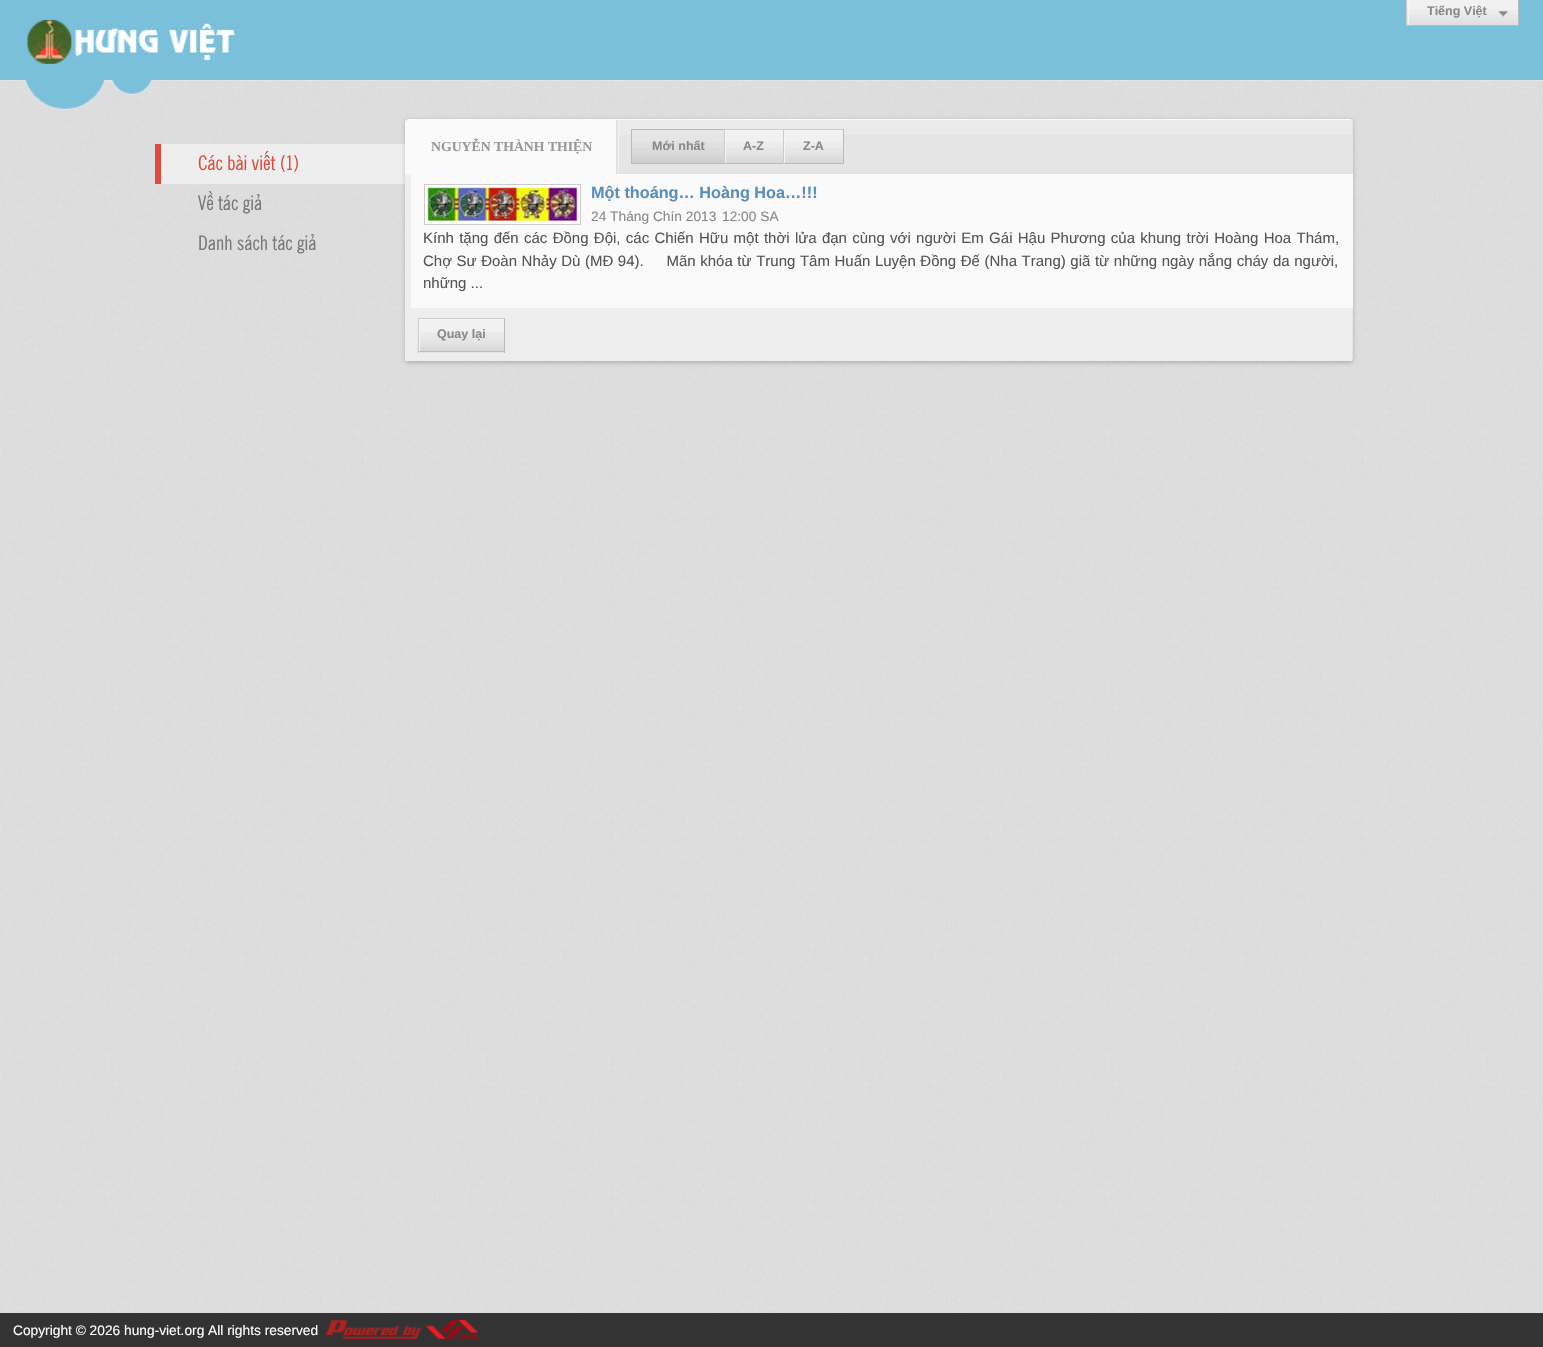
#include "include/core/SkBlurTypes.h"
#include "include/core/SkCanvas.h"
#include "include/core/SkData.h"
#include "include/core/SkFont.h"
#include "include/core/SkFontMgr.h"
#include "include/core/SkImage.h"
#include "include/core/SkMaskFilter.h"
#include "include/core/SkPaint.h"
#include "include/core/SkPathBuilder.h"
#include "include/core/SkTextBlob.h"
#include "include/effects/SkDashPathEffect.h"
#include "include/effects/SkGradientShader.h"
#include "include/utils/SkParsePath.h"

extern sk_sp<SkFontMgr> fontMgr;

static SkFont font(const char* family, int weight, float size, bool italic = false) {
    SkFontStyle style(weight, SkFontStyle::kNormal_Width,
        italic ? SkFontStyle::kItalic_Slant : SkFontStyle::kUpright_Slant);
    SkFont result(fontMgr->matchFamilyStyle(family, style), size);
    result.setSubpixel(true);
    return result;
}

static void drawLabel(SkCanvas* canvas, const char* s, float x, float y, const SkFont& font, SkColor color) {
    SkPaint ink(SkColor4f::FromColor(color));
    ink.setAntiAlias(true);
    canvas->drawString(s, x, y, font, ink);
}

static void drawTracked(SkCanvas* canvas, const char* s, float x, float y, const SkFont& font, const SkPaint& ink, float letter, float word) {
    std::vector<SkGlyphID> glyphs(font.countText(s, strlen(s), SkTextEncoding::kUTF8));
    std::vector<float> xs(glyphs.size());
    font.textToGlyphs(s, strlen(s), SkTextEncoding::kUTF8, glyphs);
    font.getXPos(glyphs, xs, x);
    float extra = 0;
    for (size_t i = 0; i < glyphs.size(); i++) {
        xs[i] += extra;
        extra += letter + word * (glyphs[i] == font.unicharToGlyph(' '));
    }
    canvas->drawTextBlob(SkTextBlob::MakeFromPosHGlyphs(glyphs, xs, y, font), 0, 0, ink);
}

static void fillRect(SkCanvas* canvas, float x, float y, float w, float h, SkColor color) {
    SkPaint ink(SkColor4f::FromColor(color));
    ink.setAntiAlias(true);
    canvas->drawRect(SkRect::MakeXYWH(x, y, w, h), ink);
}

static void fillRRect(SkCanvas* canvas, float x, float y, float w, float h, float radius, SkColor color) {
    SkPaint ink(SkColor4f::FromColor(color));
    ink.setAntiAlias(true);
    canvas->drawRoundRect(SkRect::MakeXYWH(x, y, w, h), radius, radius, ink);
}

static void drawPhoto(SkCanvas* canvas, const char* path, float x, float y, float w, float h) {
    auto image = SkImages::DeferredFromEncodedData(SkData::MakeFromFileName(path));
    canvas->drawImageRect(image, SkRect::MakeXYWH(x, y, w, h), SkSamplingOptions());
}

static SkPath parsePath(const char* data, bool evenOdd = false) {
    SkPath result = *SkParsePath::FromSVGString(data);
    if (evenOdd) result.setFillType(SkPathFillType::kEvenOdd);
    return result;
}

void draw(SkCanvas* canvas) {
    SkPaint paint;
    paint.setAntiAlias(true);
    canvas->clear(0xFFFFFFFF);
    drawPhoto(canvas, "assets/img1.png", 0, 81, 1543, 1232);
    fillRect(canvas, 0, 0, 1543, 80, 0xFF7AC0DA);
    fillRect(canvas, 0, 80, 1543, 1, 0xFFE5E5E5);
    fillRect(canvas, 1407, 0, 111, 25, 0xFFF1F1F1);
    drawPhoto(canvas, "assets/img2.png", 1407, 10, 111, 15);
    canvas->save();
    canvas->clipRect(SkRect::MakeXYWH(1408, 0, 110, 25));
    paint.setColor(0xFFF5F5F5);
    canvas->drawPath(parsePath("M1284-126H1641V149H1284ZM1409-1H1519V26H1409Z", true), paint);
    canvas->restore();
    fillRect(canvas, 1518, 0, 1, 26, 0xFFBBBBBB);
    fillRect(canvas, 1406, 25, 113, 1, 0xFFBBBBBB);
    fillRect(canvas, 1406, 0, 1, 26, 0xFFCCCCCC);
    SkFont font1 = font("Liberation Sans", 700, 12.5f);
    drawLabel(canvas, "Tiếng Việt", 1427, 15, font1, 0xFF888888);
    drawPhoto(canvas, "assets/img3.png", 1498, 11, 10, 6);
    drawPhoto(canvas, "assets/img4.png", 27, 19, 209, 45);
    drawPhoto(canvas, "assets/img5.png", 25, 80, 127, 30);
    fillRect(canvas, 161, 144, 244, 40, 0xFFEEEEEE);
    fillRect(canvas, 155, 144, 6, 40, 0xFFDD4B39);
    SkFont font2 = font("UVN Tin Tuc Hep", 400, 20);
    drawLabel(canvas, "Các bài viết (1)", 198, 170, font2, 0xFFDD4B39);
    drawLabel(canvas, "Về tác giả", 198, 210, font2, 0xFF777777);
    drawLabel(canvas, "Danh sách tác giả", 198, 250, font2, 0xFF777777);
    paint.setColor(0x33000000);
    paint.setMaskFilter(SkMaskFilter::MakeBlur(kNormal_SkBlurStyle, 2));
    canvas->drawRoundRect(SkRect::MakeXYWH(405, 120, 948, 243), 4, 4, paint);
    paint.setMaskFilter(nullptr);
    fillRRect(canvas, 405, 119, 948, 242, 4, 0xFFF1F1F1);
    fillRect(canvas, 408, 119, 943, 1, 0xFFFAFAFA);
    paint.setColor(0xFFE5E5E5);
    canvas->drawPath(parsePath("M409 120H1349C1351 120 1353 122 1353 124V174H405V124C405 122 407 120 409 120Z"), paint);
    fillRect(canvas, 405, 120, 947, 15, 0xFFEAEAEA);
    fillRect(canvas, 619, 173, 734, 1, 0xFFE1E1E1);
    fillRect(canvas, 618, 120, 1, 54, 0xFFF2F2F2);
    paint.setColor(0xFFFAFAFA);
    canvas->drawPath(parsePath("M409 120H618V174H405V124C405 122 407 120 409 120Z"), paint);
    fillRect(canvas, 616, 120, 2, 54, 0xFFE1E1E1);
    canvas->drawPath(parsePath("M405 174V124C405 122 407 120 409 120C407 120 406 122 406 124V174Z"), paint);
    SkFont font3 = font("Liberation Serif", 700, 13.75f);
    drawLabel(canvas, "NGUYỄN THÀNH THIỆN", 431, 151, font3, 0xFF999999);
    fillRect(canvas, 632, 130, 92, 5, 0xFFE6E6E6);
    drawPhoto(canvas, "assets/img6.png", 632, 142, 92, 21);
    fillRect(canvas, 631, 129, 93, 1, 0xFFBBBBBB);
    fillRect(canvas, 631, 163, 93, 1, 0xFFBBBBBB);
    fillRect(canvas, 631, 129, 1, 35, 0xFFBBBBBB);
    drawLabel(canvas, "Mới nhất", 652, 150, font1, 0xFF888888);
    fillRect(canvas, 726, 131, 57, 32, 0xFFF1F1F1);
    drawPhoto(canvas, "assets/img7.png", 723, 142, 60, 22);
    canvas->save();
    canvas->clipRect(SkRect::MakeXYWH(725, 130, 58, 33));
    paint.setColor(0xFFF5F5F5);
    canvas->drawPath(parsePath("M601 6H906V286H601ZM726 131H784V164H726Z", true), paint);
    canvas->restore();
    fillRect(canvas, 724, 129, 120, 1, 0xFFCCCCCC);
    fillRect(canvas, 724, 163, 59, 1, 0xFFBBBBBB);
    fillRect(canvas, 724, 129, 1, 35, 0xFFCCCCCC);
    drawLabel(canvas, "A-Z", 743, 150, font1, 0xFF888888);
    fillRect(canvas, 785, 131, 58, 32, 0xFFF1F1F1);
    drawPhoto(canvas, "assets/img8.png", 782, 142, 61, 22);
    canvas->save();
    canvas->clipRect(SkRect::MakeXYWH(784, 130, 59, 33));
    canvas->drawPath(parsePath("M660 6H966V286H660ZM785 131H844V164H785Z", true), paint);
    canvas->restore();
    fillRect(canvas, 843, 129, 1, 35, 0xFFBBBBBB);
    fillRect(canvas, 783, 163, 61, 1, 0xFFBBBBBB);
    fillRect(canvas, 783, 129, 1, 35, 0xFFCCCCCC);
    drawLabel(canvas, "Z-A", 803, 150, font1, 0xFF888888);
    fillRect(canvas, 411, 174, 942, 134, 0xFFFAFAFA);
    fillRect(canvas, 405, 308, 948, 1, 0xFFEEEEEE);
    fillRect(canvas, 405, 174, 6, 135, 0xFFEEEEEE);
    paint.setColor(0xFFFFFFFF);
    canvas->drawRect(SkRect::MakeXYWH(424.5f, 184.5f, 156, 40), paint);
    paint.setStroke(true);
    paint.setStrokeWidth(1);
    paint.setColor(0xFFCCCCCC);
    canvas->drawRect(SkRect::MakeXYWH(424.5f, 184.5f, 156, 40), paint);
    drawPhoto(canvas, "assets/img9.png", 427, 187, 151, 35);
    SkFont font4 = font("Liberation Sans", 700, 16.25f);
    drawLabel(canvas, "Một thoáng… Hoàng Hoa…!!!", 591, 198, font4, 0xFF5A8EBB);
    SkFont font5 = font("Liberation Sans", 400, 13.75f);
    drawLabel(canvas, "24 Tháng Chín 2013", 591, 221, font5, 0xFF888888);
    drawLabel(canvas, "12:00 SA", 722, 221, font5, 0xFF888888);
    SkFont font6 = font("Liberation Sans", 400, 15);
    paint.setStroke(false);
    paint.setColor(0xFF555555);
    drawTracked(canvas, "Kính tặng đến các Đồng Đội, các Chiến Hữu một thời lửa đạn cùng với người Em Gái Hậu Phương của khung trời Hoàng Hoa Thám,", 423, 243, font6, paint, 0, 1.15f);
    drawTracked(canvas, "Chợ Sư Đoàn Nhảy Dù (MĐ 94).     Mãn khóa từ Trung Tâm Huấn Luyện Đồng Đế (Nha Trang) giã từ những ngày nắng cháy da người,", 423, 266, font6, paint, 0, 0.4f);
    drawLabel(canvas, "những ...", 423, 288, font6, 0xFF555555);
    paint.setColor(0xFFE5E5E5);
    canvas->drawPath(parsePath("M405 309H1353V357C1353 359 1351 361 1349 361H409C407 361 405 359 405 357Z"), paint);
    fillRect(canvas, 405, 309, 947, 52, 0xFFEDEDED);
    fillRect(canvas, 419, 320, 85, 33, 0xFFF1F1F1);
    drawPhoto(canvas, "assets/img10.png", 417, 332, 87, 21);
    canvas->save();
    canvas->clipRect(SkRect::MakeXYWH(419, 319, 85, 32));
    paint.setColor(0xFFF5F5F5);
    canvas->drawPath(parsePath("M295 195H628V475H295ZM420 320H505V352H420Z", true), paint);
    canvas->restore();
    fillRect(canvas, 418, 318, 87, 1, 0xFFCCCCCC);
    fillRect(canvas, 504, 318, 1, 35, 0xFFBBBBBB);
    fillRect(canvas, 418, 351, 87, 1, 0xFFBBBBBB);
    fillRect(canvas, 418, 318, 1, 35, 0xFFCCCCCC);
    drawLabel(canvas, "Quay lại", 437, 338, font1, 0xFF888888);
    fillRect(canvas, 0, 1313, 1543, 34, 0xFF333333);
    drawLabel(canvas, "Copyright © 2026 hung-viet.org All rights reserved", 13, 1335, font5, 0xFFFFFFFF);
    drawPhoto(canvas, "assets/img11.png", 325, 1319, 154, 20);
}
